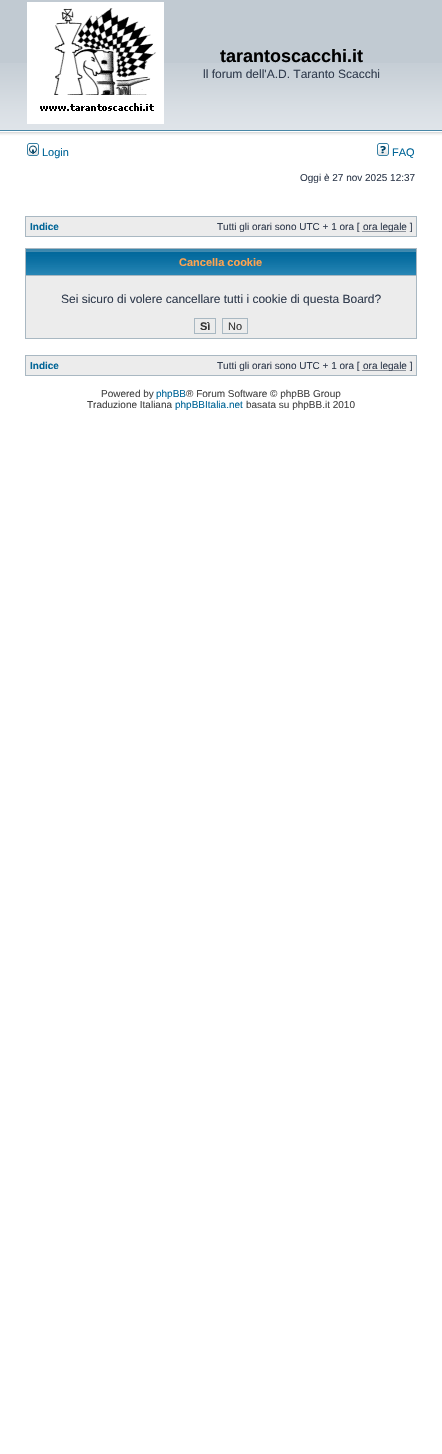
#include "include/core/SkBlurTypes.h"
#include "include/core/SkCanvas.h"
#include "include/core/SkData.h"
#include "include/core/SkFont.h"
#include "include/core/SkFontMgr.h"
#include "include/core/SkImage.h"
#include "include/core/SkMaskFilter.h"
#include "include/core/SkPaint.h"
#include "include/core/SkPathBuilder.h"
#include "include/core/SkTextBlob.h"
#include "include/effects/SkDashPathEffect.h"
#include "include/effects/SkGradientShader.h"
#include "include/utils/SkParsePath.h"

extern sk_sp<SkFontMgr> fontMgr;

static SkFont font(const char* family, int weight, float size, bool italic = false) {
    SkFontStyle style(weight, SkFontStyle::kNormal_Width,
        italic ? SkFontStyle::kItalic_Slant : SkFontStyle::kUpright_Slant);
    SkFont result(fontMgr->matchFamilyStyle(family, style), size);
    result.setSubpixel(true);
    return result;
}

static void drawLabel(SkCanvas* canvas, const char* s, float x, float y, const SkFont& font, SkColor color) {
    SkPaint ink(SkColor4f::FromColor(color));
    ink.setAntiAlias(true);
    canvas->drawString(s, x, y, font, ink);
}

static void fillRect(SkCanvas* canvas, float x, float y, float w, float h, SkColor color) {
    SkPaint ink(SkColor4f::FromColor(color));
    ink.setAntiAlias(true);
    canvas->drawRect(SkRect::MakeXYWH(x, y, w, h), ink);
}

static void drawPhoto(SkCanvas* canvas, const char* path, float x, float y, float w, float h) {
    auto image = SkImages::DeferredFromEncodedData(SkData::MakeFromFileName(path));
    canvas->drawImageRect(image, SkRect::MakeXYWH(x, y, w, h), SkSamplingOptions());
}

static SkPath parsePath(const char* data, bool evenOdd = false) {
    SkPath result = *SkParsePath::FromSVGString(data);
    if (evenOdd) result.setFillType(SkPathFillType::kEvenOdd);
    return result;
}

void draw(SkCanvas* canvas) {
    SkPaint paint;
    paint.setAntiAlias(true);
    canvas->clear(0xFFFFFFFF);
    fillRect(canvas, 0, 0, 442, 63, 0xFFC1CAD2);
    drawPhoto(canvas, "assets/img1.png", 0, 63, 442, 78);
    drawPhoto(canvas, "assets/img2.png", 27, 2, 137, 122);
    SkFont font1 = font("Liberation Sans", 700, 18);
    drawLabel(canvas, "tarantoscacchi.it", 220, 62, font1, 0xFF000000);
    SkFont font2 = font("Liberation Sans", 400, 12);
    drawLabel(canvas, "ll forum dell'A.D. Taranto Scacchi", 203, 78, font2, 0xFF323D4F);
    drawPhoto(canvas, "assets/img3.png", 27, 143, 12, 13);
    SkFont font3 = font("Liberation Sans", 400, 11);
    drawLabel(canvas, "Login", 42, 156, font3, 0xFF006597);
    drawPhoto(canvas, "assets/img4.png", 377, 143, 12, 13);
    drawLabel(canvas, "FAQ", 392, 156, font3, 0xFF006597);
    SkFont font4 = font("Liberation Sans", 400, 10);
    drawLabel(canvas, "Oggi è 27 nov 2025 12:37", 300, 181, font4, 0xFF323D4F);
    fillRect(canvas, 25, 216, 392, 21, 0xFFA9B8C2);
    fillRect(canvas, 26, 217, 390, 19, 0xFFECECEC);
    SkFont font5 = font("Liberation Sans", 700, 10);
    drawLabel(canvas, "Indice", 30, 230, font5, 0xFF006597);
    drawLabel(canvas, "Tutti gli orari sono UTC + 1 ora [", 217, 230, font4, 0xFF323D4F);
    paint.setStroke(true);
    paint.setStrokeWidth(1);
    paint.setColor(0xFF323D4F);
    paint.setPathEffect(SkDashPathEffect::Make({{1, 1}}, 0));
    canvas->drawPath(parsePath("M362.5 231.5H406.5"), paint);
    paint.setPathEffect(nullptr);
    drawLabel(canvas, "ora legale ]", 363, 230, font4, 0xFF323D4F);
    fillRect(canvas, 25, 248, 392, 91, 0xFFA9B8C2);
    drawPhoto(canvas, "assets/img5.png", 26, 249, 390, 26);
    SkFont font6 = font("Liberation Sans", 700, 11);
    drawLabel(canvas, "Cancella cookie", 179, 266, font6, 0xFFFFA34F);
    fillRect(canvas, 26, 276, 390, 62, 0xFFECECEC);
    drawLabel(canvas, "Sei sicuro di volere cancellare tutti i cookie di questa Board?", 61, 303, font2, 0xFF323D4F);
    paint.setColor(0xFFA9B8C2);
    canvas->drawRect(SkRect::MakeXYWH(194.5f, 318.5f, 21, 15), paint);
    drawLabel(canvas, "Sì", 200, 330, font6, 0xFF333333);
    canvas->drawRect(SkRect::MakeXYWH(222.5f, 318.5f, 25, 15), paint);
    drawLabel(canvas, "No", 228, 330, font3, 0xFF333333);
    fillRect(canvas, 25, 355, 392, 21, 0xFFA9B8C2);
    fillRect(canvas, 26, 356, 390, 19, 0xFFECECEC);
    drawLabel(canvas, "Indice", 30, 369, font5, 0xFF006597);
    drawLabel(canvas, "Tutti gli orari sono UTC + 1 ora [", 217, 369, font4, 0xFF323D4F);
    paint.setColor(0xFF323D4F);
    paint.setPathEffect(SkDashPathEffect::Make({{1, 1}}, 0));
    canvas->drawPath(parsePath("M362.5 370.5H406.5"), paint);
    paint.setPathEffect(nullptr);
    drawLabel(canvas, "ora legale ]", 363, 369, font4, 0xFF323D4F);
    drawLabel(canvas, "Powered by", 101, 397, font4, 0xFF444444);
    drawLabel(canvas, "phpBB", 156, 397, font4, 0xFF006597);
    drawLabel(canvas, "® Forum Software © phpBB Group", 186, 397, font4, 0xFF444444);
    drawLabel(canvas, "Traduzione Italiana", 87, 408, font4, 0xFF444444);
    drawLabel(canvas, "phpBBItalia.net", 175, 408, font4, 0xFF006597);
    drawLabel(canvas, "basata su phpBB.it 2010", 246, 408, font4, 0xFF444444);
}
